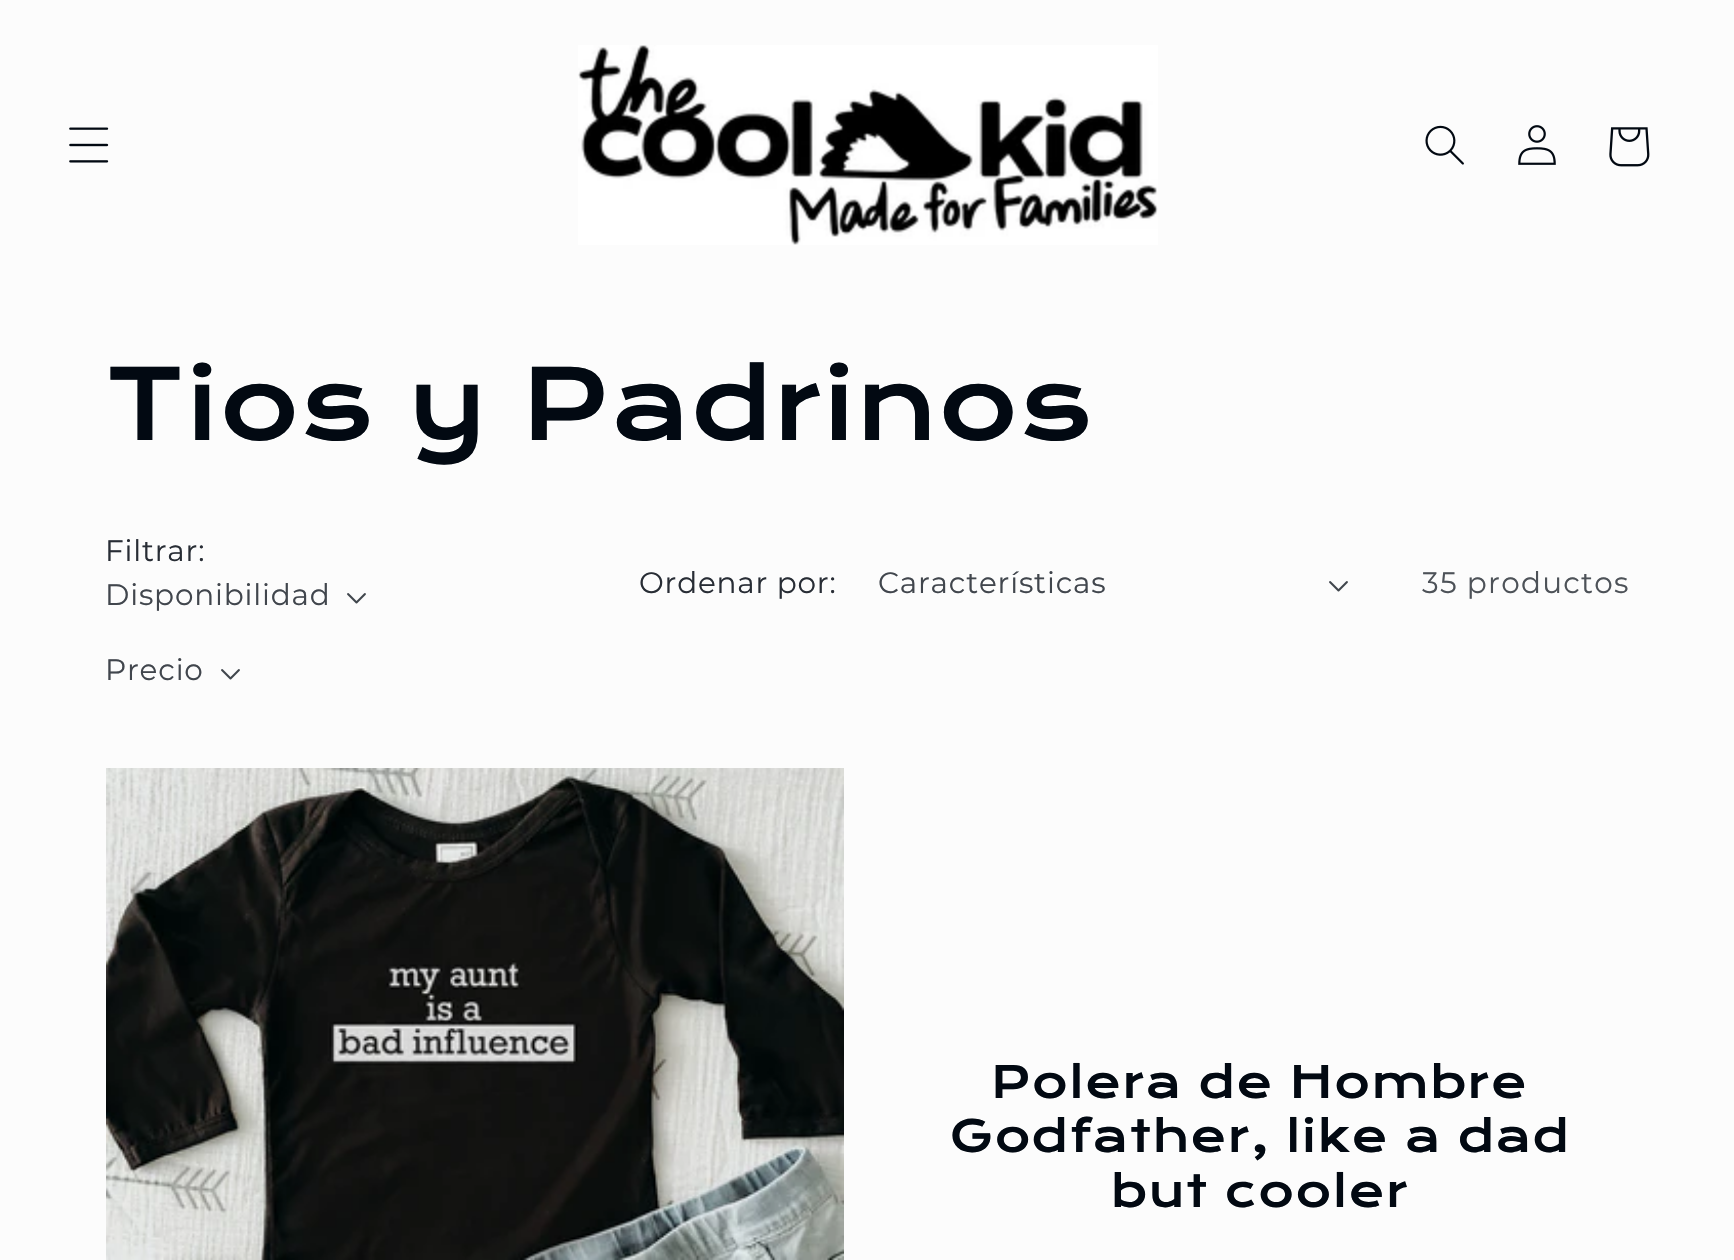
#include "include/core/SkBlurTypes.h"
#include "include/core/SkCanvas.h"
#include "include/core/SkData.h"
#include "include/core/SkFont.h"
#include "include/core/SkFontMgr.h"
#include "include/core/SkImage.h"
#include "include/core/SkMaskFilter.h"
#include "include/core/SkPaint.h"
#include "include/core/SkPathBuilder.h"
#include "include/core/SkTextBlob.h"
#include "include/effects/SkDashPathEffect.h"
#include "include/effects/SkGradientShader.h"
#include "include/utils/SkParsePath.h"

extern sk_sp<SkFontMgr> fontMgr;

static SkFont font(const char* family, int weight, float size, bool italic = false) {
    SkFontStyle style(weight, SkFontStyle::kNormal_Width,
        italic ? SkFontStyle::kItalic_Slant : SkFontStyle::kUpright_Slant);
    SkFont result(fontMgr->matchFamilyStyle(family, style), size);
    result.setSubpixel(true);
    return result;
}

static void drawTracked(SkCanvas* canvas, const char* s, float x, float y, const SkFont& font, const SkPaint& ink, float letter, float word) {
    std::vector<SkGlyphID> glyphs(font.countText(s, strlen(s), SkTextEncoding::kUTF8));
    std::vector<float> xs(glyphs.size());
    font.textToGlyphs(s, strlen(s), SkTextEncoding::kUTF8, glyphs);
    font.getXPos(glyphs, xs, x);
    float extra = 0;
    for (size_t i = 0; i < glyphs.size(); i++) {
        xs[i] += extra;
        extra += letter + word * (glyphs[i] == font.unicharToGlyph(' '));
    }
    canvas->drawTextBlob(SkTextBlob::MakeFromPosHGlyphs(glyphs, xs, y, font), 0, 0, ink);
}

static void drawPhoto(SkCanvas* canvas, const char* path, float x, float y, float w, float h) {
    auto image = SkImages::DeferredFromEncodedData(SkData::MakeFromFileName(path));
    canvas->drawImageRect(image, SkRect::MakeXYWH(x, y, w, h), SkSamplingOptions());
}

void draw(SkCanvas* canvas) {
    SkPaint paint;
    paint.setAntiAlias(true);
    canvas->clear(0xFFFCFCFC);
    drawPhoto(canvas, "assets/img1.png", 69, 127, 40, 36);
    drawPhoto(canvas, "assets/img2.png", 578, 45, 580, 200);
    drawPhoto(canvas, "assets/img3.png", 1425, 125, 39, 40);
    drawPhoto(canvas, "assets/img4.png", 1518, 125, 38, 40);
    drawPhoto(canvas, "assets/img5.png", 1609, 127, 41, 40);
    SkFont font1 = font("Krona One", 400, 96);
    paint.setColor(0xFF020912);
    drawTracked(canvas, "Tios y Padrinos", 105, 440, font1, paint, 1.4f, 0);
    SkFont font2 = font("Montserrat", 400, 29.5f);
    paint.setColor(0xFF282D35);
    drawTracked(canvas, "Filtrar:", 105, 561, font2, paint, 0.8f, 0);
    paint.setColor(0xFF41464D);
    drawTracked(canvas, "Disponibilidad", 105, 605, font2, paint, 0.8f, 0);
    drawPhoto(canvas, "assets/img6.png", 347, 593, 19, 11);
    drawTracked(canvas, "Precio", 105, 680, font2, paint, 0.8f, 0);
    drawPhoto(canvas, "assets/img6.png", 221, 669, 19, 11);
    paint.setColor(0xFF282D35);
    drawTracked(canvas, "Ordenar por:", 639, 593, font2, paint, 0.8f, 0);
    paint.setColor(0xFF41464D);
    drawTracked(canvas, "Características", 878, 593, font2, paint, 0.8f, 0);
    drawPhoto(canvas, "assets/img6.png", 1329, 581, 19, 11);
    paint.setColor(0xFF4D5258);
    drawTracked(canvas, "35 productos", 1422, 593, font2, paint, 1.25f, 0);
    drawPhoto(canvas, "assets/img7.png", 106, 768, 738, 492);
    SkFont font3 = font("Krona One", 400, 43.25f);
    paint.setColor(0xFF020912);
    drawTracked(canvas, "Polera de Hombre", 991, 1098, font3, paint, 1.4f, 0);
    drawTracked(canvas, "Godfather, like a dad", 950, 1152, font3, paint, 1.4f, 0);
    drawTracked(canvas, "but cooler", 1111, 1207, font3, paint, 1.4f, 0);
}
